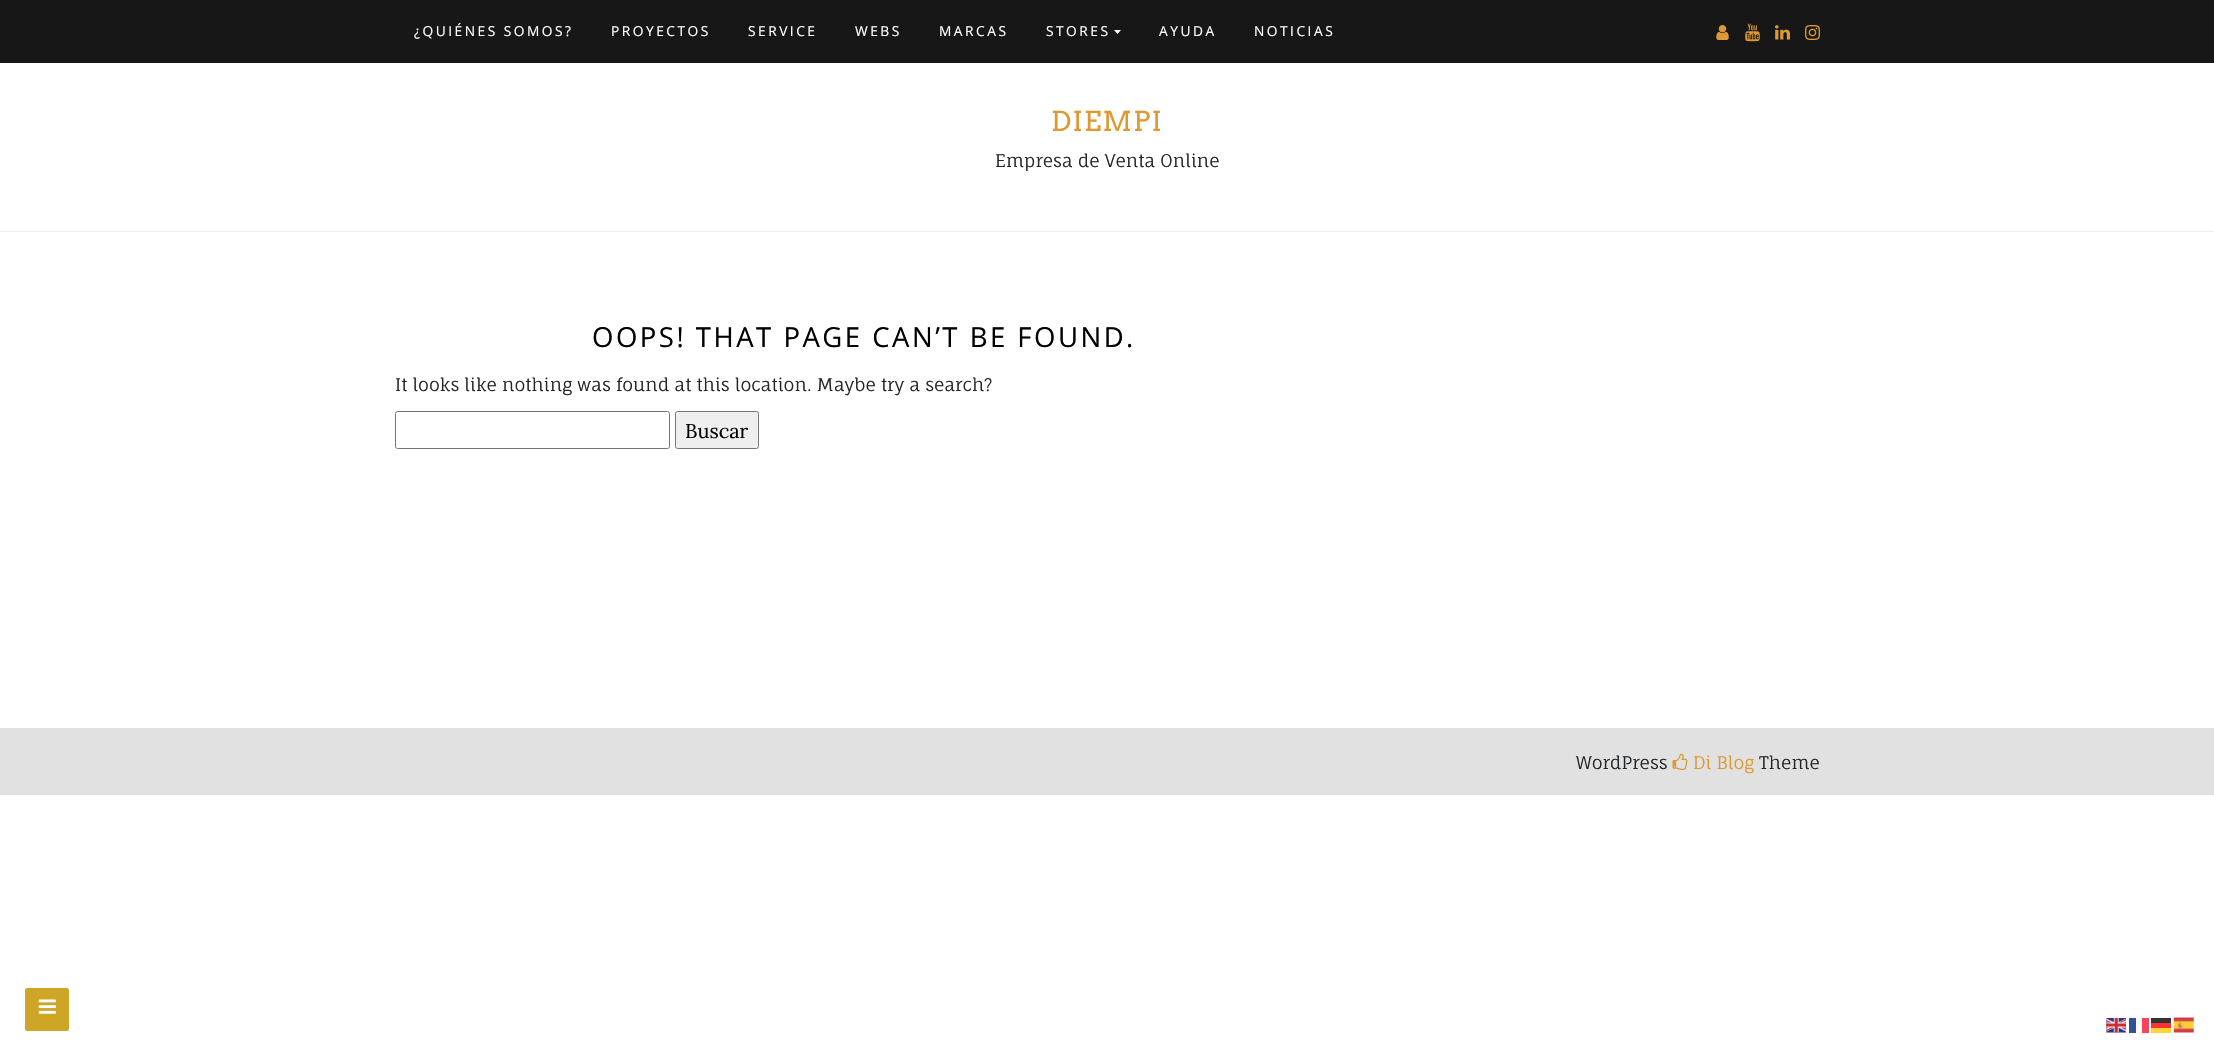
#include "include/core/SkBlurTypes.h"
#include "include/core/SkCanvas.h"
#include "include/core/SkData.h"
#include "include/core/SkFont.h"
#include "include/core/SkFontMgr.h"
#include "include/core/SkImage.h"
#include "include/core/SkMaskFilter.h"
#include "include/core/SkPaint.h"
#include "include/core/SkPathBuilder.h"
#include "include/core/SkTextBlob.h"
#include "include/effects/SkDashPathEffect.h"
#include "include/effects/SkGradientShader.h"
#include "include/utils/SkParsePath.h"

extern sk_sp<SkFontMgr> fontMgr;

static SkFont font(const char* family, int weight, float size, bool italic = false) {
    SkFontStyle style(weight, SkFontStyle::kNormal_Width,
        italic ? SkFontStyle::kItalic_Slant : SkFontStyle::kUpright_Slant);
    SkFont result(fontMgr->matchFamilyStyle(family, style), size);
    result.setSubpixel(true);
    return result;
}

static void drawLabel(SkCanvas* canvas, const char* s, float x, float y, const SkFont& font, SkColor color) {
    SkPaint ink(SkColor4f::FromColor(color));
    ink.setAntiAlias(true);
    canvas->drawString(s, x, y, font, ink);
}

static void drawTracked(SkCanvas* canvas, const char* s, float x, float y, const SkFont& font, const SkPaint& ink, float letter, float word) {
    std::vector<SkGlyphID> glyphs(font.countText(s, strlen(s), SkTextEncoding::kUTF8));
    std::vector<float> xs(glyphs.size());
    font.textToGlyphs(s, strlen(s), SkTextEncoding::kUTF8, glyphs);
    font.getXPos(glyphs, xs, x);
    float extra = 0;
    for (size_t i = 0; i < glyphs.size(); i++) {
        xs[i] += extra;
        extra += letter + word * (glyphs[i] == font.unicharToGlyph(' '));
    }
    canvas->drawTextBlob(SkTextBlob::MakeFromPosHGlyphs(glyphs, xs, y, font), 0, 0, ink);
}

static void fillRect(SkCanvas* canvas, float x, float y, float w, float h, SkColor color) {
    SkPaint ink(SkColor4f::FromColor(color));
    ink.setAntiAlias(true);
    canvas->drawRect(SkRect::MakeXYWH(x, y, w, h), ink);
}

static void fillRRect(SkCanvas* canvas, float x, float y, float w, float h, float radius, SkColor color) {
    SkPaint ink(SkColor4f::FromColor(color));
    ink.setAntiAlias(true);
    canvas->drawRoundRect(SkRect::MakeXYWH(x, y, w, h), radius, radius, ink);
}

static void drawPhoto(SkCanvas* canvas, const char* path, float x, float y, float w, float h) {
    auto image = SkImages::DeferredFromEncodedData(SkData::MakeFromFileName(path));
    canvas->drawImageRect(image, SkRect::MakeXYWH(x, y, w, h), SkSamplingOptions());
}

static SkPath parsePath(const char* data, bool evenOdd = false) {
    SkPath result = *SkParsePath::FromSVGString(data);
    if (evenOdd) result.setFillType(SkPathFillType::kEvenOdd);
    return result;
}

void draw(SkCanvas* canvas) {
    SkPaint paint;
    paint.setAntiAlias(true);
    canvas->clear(0xFFFFFFFF);
    fillRect(canvas, 0, 0, 2214, 63, 0xFF171717);
    SkFont font1 = font("Open Sans", 400, 13.75f);
    paint.setColor(0xFFFFFFFF);
    drawTracked(canvas, "¿QUIÉNES SOMOS?", 414, 36, font1, paint, 2.5f, 0);
    drawTracked(canvas, "PROYECTOS", 611, 36, font1, paint, 2.5f, 0);
    drawTracked(canvas, "SERVICE", 748, 36, font1, paint, 2.5f, 0);
    drawTracked(canvas, "WEBS", 855, 36, font1, paint, 2.5f, 0);
    drawTracked(canvas, "MARCAS", 939, 36, font1, paint, 2.5f, 0);
    drawTracked(canvas, "STORES", 1046, 36, font1, paint, 2.5f, 0);
    canvas->drawPath(parsePath("M1114 30H1121L1117.5 34Z"), paint);
    drawTracked(canvas, "AYUDA", 1159, 36, font1, paint, 2.5f, 0);
    drawTracked(canvas, "NOTICIAS", 1254, 36, font1, paint, 2.5f, 0);
    drawPhoto(canvas, "assets/img1.png", 1716, 25, 13, 15);
    drawPhoto(canvas, "assets/img2.png", 1745, 23, 15, 19);
    drawPhoto(canvas, "assets/img3.png", 1775, 25, 15, 15);
    drawPhoto(canvas, "assets/img4.png", 1805, 25, 15, 15);
    fillRect(canvas, 0, 231, 2214, 1, 0xFFEEEEEE);
    SkFont font2 = font("Arvo", 400, 27.5f);
    paint.setColor(0xFFDD9933);
    drawTracked(canvas, "DIEMPI", 1051, 131, font2, paint, 1.25f, 0);
    SkFont font3 = font("Fauna One", 400, 17.5f);
    drawLabel(canvas, "Empresa de Venta Online", 995, 167, font3, 0xFF212529);
    SkFont font4 = font("Open Sans", 400, 27.5f);
    paint.setColor(0xFF000000);
    drawTracked(canvas, "OOPS! THAT PAGE CAN’T BE FOUND.", 592, 347, font4, paint, 2.5f, 0);
    drawLabel(canvas, "It looks like nothing was found at this location. Maybe try a search?", 395, 391, font3, 0xFF212529);
    paint.setStroke(true);
    paint.setStrokeWidth(1);
    paint.setColor(0xFF767676);
    canvas->drawRoundRect(SkRect::MakeXYWH(395.5f, 411.5f, 274, 37), 2, 2, paint);
    paint.setStroke(false);
    paint.setColor(0xFFEFEFEF);
    canvas->drawRoundRect(SkRect::MakeXYWH(675.5f, 411.5f, 83, 37), 2, 2, paint);
    paint.setStroke(true);
    paint.setColor(0xFF767676);
    canvas->drawRoundRect(SkRect::MakeXYWH(675.5f, 411.5f, 83, 37), 2, 2, paint);
    SkFont font5 = font("Lora", 400, 20);
    drawLabel(canvas, "Buscar", 685, 438, font5, 0xFF000000);
    fillRect(canvas, 0, 728, 2214, 67, 0xFFE1E1E1);
    drawLabel(canvas, "WordPress", 1576, 769, font3, 0xFF212529);
    drawPhoto(canvas, "assets/img5.png", 1672, 753, 16, 17);
    drawLabel(canvas, "Di Blog", 1693, 769, font3, 0xFFDD9933);
    drawLabel(canvas, "Theme", 1759, 769, font3, 0xFF212529);
    fillRRect(canvas, 25, 988, 44, 43, 2.5f, 0xFFCEA525);
    drawPhoto(canvas, "assets/img6.png", 38, 999, 18, 15);
    drawPhoto(canvas, "assets/img7.png", 2106, 1018, 20, 15);
    fillRect(canvas, 2129, 1018, 7, 15, 0xFF335199);
    fillRect(canvas, 2142, 1018, 7, 15, 0xFFF54659);
    fillRect(canvas, 2151, 1018, 20, 5, 0xFF333333);
    drawPhoto(canvas, "assets/img8.png", 2173, 1017, 21, 16);
    fillRect(canvas, 2151, 1023, 20, 5, 0xFFFF3333);
    fillRect(canvas, 2151, 1028, 20, 5, 0xFFFFD633);
}
